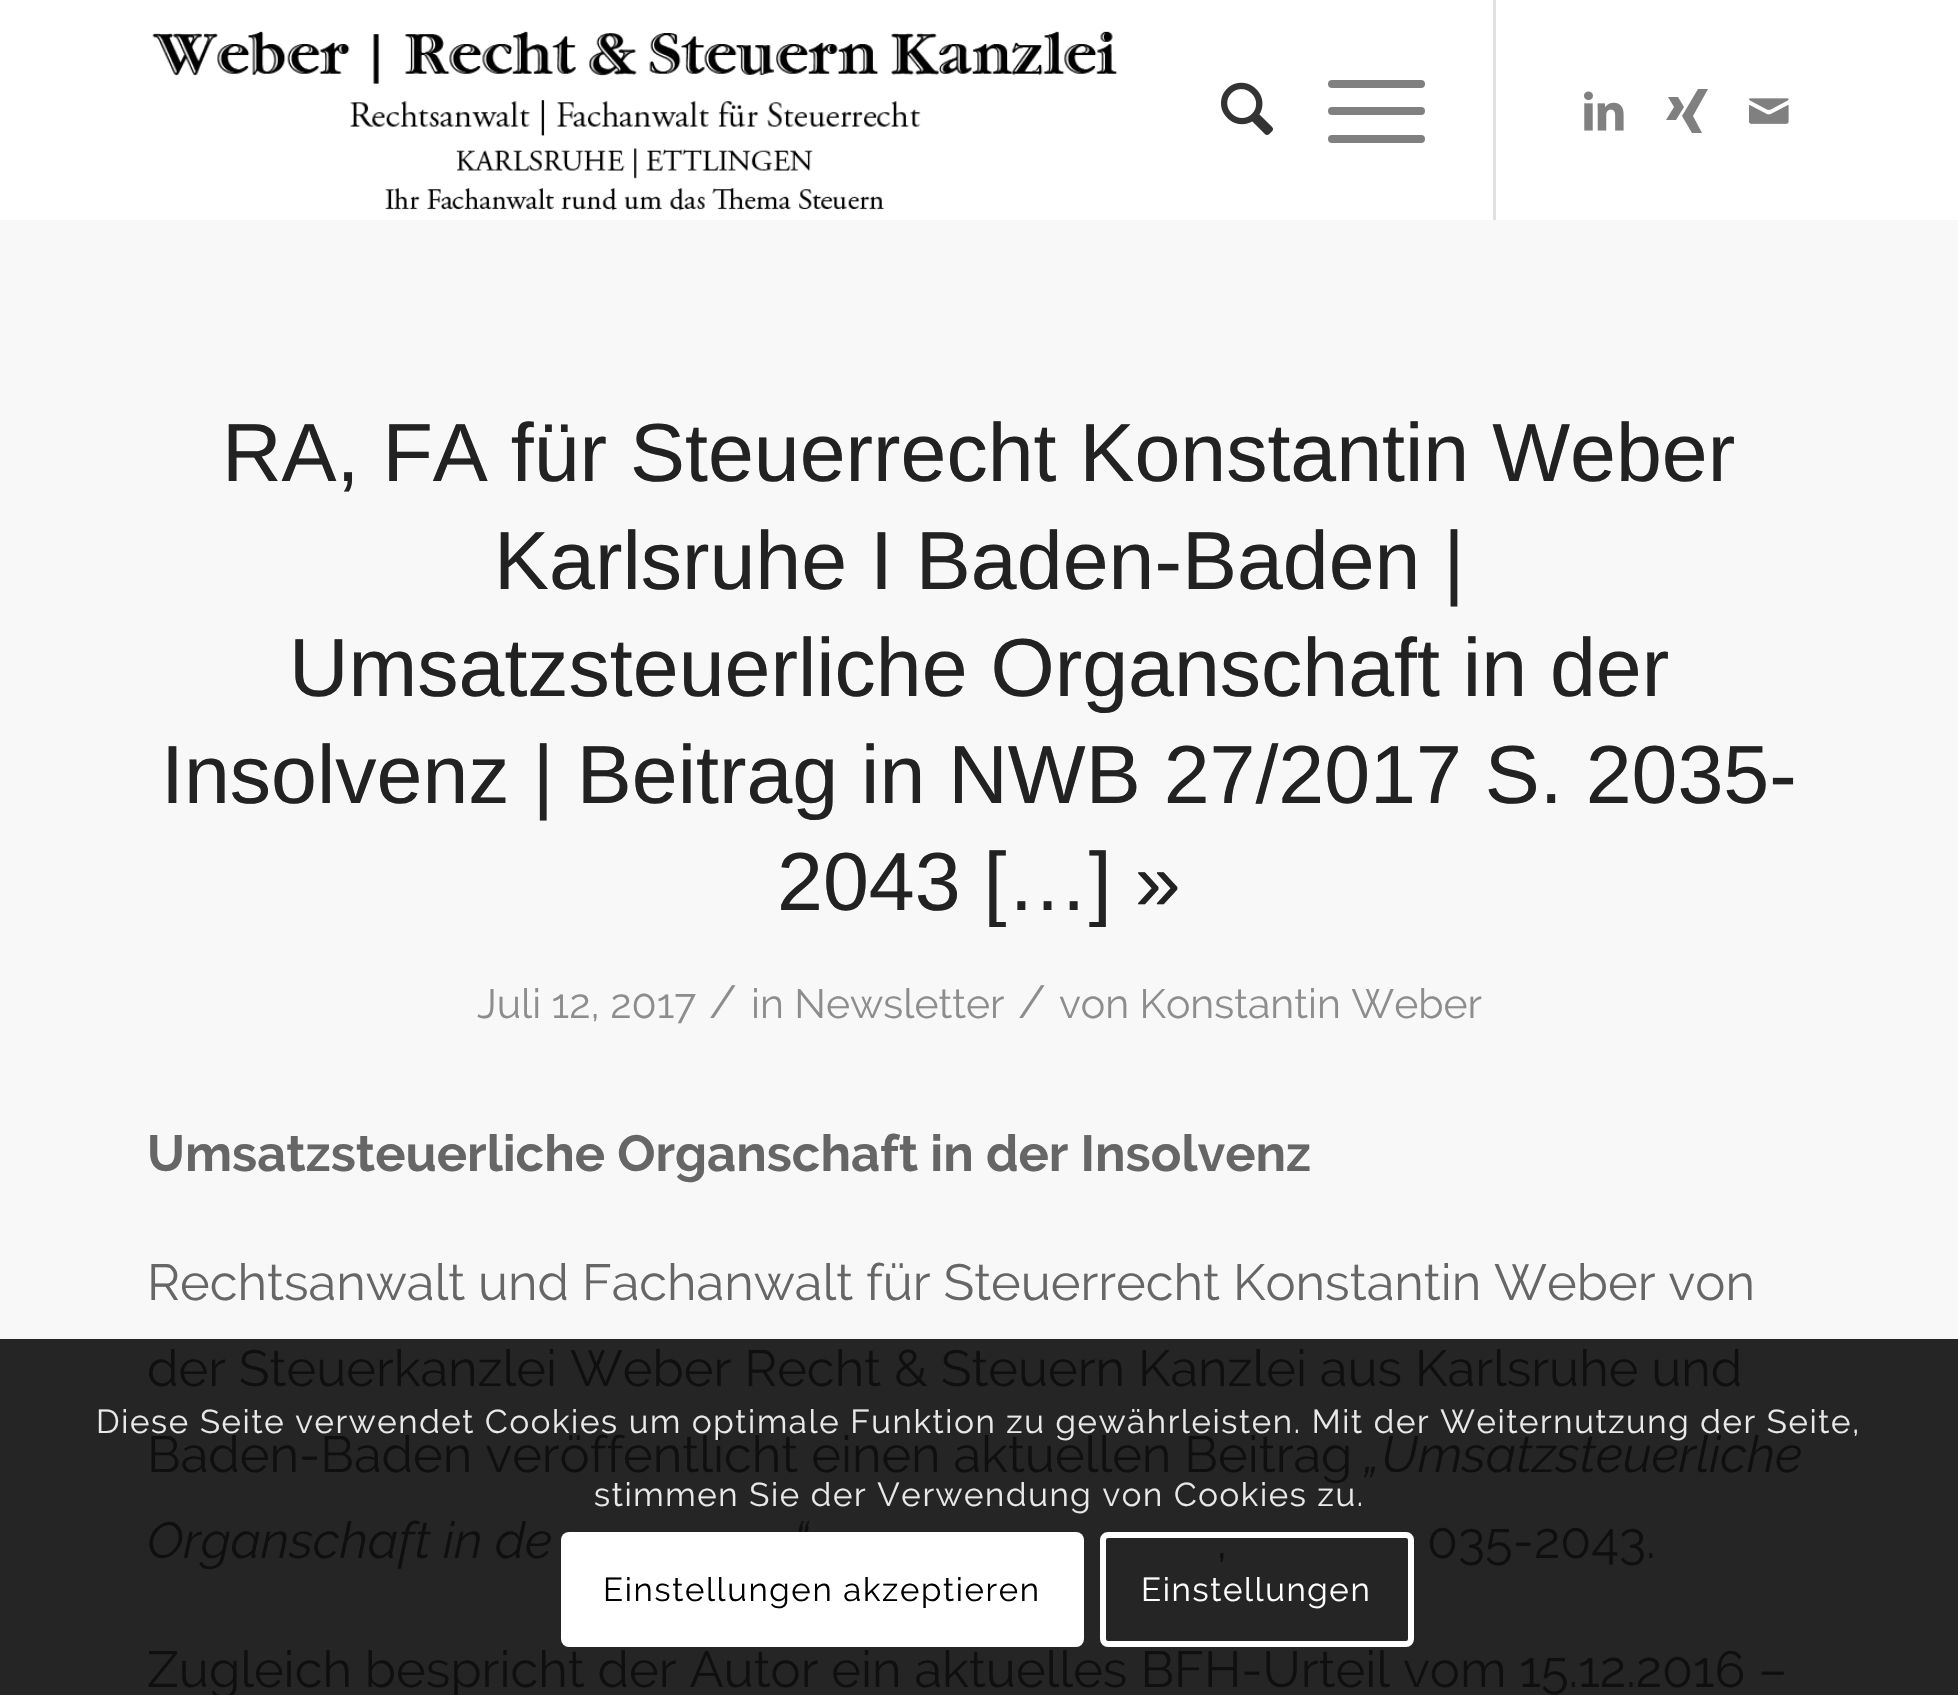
#include "include/core/SkBlurTypes.h"
#include "include/core/SkCanvas.h"
#include "include/core/SkData.h"
#include "include/core/SkFont.h"
#include "include/core/SkFontMgr.h"
#include "include/core/SkImage.h"
#include "include/core/SkMaskFilter.h"
#include "include/core/SkPaint.h"
#include "include/core/SkPathBuilder.h"
#include "include/core/SkTextBlob.h"
#include "include/effects/SkDashPathEffect.h"
#include "include/effects/SkGradientShader.h"
#include "include/utils/SkParsePath.h"

extern sk_sp<SkFontMgr> fontMgr;

static SkFont font(const char* family, int weight, float size, bool italic = false) {
    SkFontStyle style(weight, SkFontStyle::kNormal_Width,
        italic ? SkFontStyle::kItalic_Slant : SkFontStyle::kUpright_Slant);
    SkFont result(fontMgr->matchFamilyStyle(family, style), size);
    result.setSubpixel(true);
    return result;
}

static void drawLabel(SkCanvas* canvas, const char* s, float x, float y, const SkFont& font, SkColor color) {
    SkPaint ink(SkColor4f::FromColor(color));
    ink.setAntiAlias(true);
    canvas->drawString(s, x, y, font, ink);
}

static void drawTracked(SkCanvas* canvas, const char* s, float x, float y, const SkFont& font, const SkPaint& ink, float letter, float word) {
    std::vector<SkGlyphID> glyphs(font.countText(s, strlen(s), SkTextEncoding::kUTF8));
    std::vector<float> xs(glyphs.size());
    font.textToGlyphs(s, strlen(s), SkTextEncoding::kUTF8, glyphs);
    font.getXPos(glyphs, xs, x);
    float extra = 0;
    for (size_t i = 0; i < glyphs.size(); i++) {
        xs[i] += extra;
        extra += letter + word * (glyphs[i] == font.unicharToGlyph(' '));
    }
    canvas->drawTextBlob(SkTextBlob::MakeFromPosHGlyphs(glyphs, xs, y, font), 0, 0, ink);
}

static void fillRect(SkCanvas* canvas, float x, float y, float w, float h, SkColor color) {
    SkPaint ink(SkColor4f::FromColor(color));
    ink.setAntiAlias(true);
    canvas->drawRect(SkRect::MakeXYWH(x, y, w, h), ink);
}

static void fillRRect(SkCanvas* canvas, float x, float y, float w, float h, float radius, SkColor color) {
    SkPaint ink(SkColor4f::FromColor(color));
    ink.setAntiAlias(true);
    canvas->drawRoundRect(SkRect::MakeXYWH(x, y, w, h), radius, radius, ink);
}

static void drawPhoto(SkCanvas* canvas, const char* path, float x, float y, float w, float h) {
    auto image = SkImages::DeferredFromEncodedData(SkData::MakeFromFileName(path));
    canvas->drawImageRect(image, SkRect::MakeXYWH(x, y, w, h), SkSamplingOptions());
}

static SkPath parsePath(const char* data, bool evenOdd = false) {
    SkPath result = *SkParsePath::FromSVGString(data);
    if (evenOdd) result.setFillType(SkPathFillType::kEvenOdd);
    return result;
}

void draw(SkCanvas* canvas) {
    SkPaint paint;
    paint.setAntiAlias(true);
    canvas->clear(0xFFFFFFFF);
    drawPhoto(canvas, "assets/img1.png", 152, 31, 966, 180);
    fillRect(canvas, 1493, 0, 3, 220, 0xFFE1E1E1);
    drawPhoto(canvas, "assets/img2.png", 1221, 82, 52, 53);
    fillRRect(canvas, 1328, 107, 97, 8, 4, 0xFF808080);
    fillRRect(canvas, 1328, 80, 97, 8, 4, 0xFF808080);
    fillRRect(canvas, 1328, 135, 97, 8, 4, 0xFF808080);
    drawPhoto(canvas, "assets/img3.png", 1584, 91, 40, 40);
    paint.setColor(0xFF808080);
    canvas->drawPath(parsePath("M1666 120H1676L1684 107L1678 97H1668L1674 107ZM1682 116L1698 89H1708L1693 116L1702 133H1692Z"), paint);
    drawPhoto(canvas, "assets/img4.png", 1749, 98, 40, 26);
    fillRect(canvas, 0, 220, 1958, 1119, 0xFFF8F8F8);
    fillRect(canvas, 0, 1339, 1958, 356, 0xFF252525);
    SkFont font1 = font("Liberation Sans", 400, 82.5f);
    drawLabel(canvas, "RA, FA für Steuerrecht Konstantin Weber", 222, 481, font1, 0xFF222222);
    drawLabel(canvas, "Karlsruhe I Baden-Baden |", 494, 589, font1, 0xFF222222);
    drawLabel(canvas, "Umsatzsteuerliche Organschaft in der", 289, 696, font1, 0xFF222222);
    drawLabel(canvas, "Insolvenz | Beitrag in NWB 27/2017 S. 2035-", 161, 803, font1, 0xFF222222);
    drawLabel(canvas, "2043 […] »", 777, 910, font1, 0xFF222222);
    SkFont font2 = font("Raleway", 400, 41);
    drawLabel(canvas, "Juli 12, 2017", 477, 1018, font2, 0xFF8D8D8D);
    SkFont font3 = font("Raleway", 400, 46);
    drawLabel(canvas, "/", 709, 1018, font3, 0xFF8D8D8D);
    drawLabel(canvas, "in Newsletter", 751, 1018, font2, 0xFF8D8D8D);
    drawLabel(canvas, "/", 1018, 1018, font3, 0xFF8D8D8D);
    drawLabel(canvas, "von Konstantin Weber", 1059, 1018, font2, 0xFF8D8D8D);
    SkFont font4 = font("Raleway", 700, 50.6f);
    drawLabel(canvas, "Umsatzsteuerliche Organschaft in der Insolvenz", 147, 1171, font4, 0xFF666666);
    SkFont font5 = font("Raleway", 400, 50.6f);
    drawLabel(canvas, "Rechtsanwalt und Fachanwalt für Steuerrecht Konstantin Weber von", 147, 1300, font5, 0xFF666666);
    drawLabel(canvas, "der Steuerkanzlei Weber Recht & Steuern Kanzlei aus Karlsruhe und", 147, 1386, font5, 0xFF0F0F0F);
    drawLabel(canvas, "Baden-Baden veröffentlicht einen aktuellen Beitrag", 147, 1472, font5, 0xFF0F0F0F);
    SkFont font6 = font("Raleway", 400, 50.6f, true);
    drawLabel(canvas, "„Umsatzsteuerliche", 1364, 1472, font6, 0xFF0F0F0F);
    drawLabel(canvas, "Organschaft in de", 147, 1558, font6, 0xFF0F0F0F);
    drawLabel(canvas, "“", 793, 1558, font6, 0xFF0F0F0F);
    drawLabel(canvas, ",", 1216, 1558, font5, 0xFF0F0F0F);
    drawLabel(canvas, "035-2043.", 1427, 1558, font5, 0xFF0F0F0F);
    drawLabel(canvas, "Zugleich bespricht der Autor ein aktuelles BFH-Urteil vom 15.12.2016 –", 147, 1687, font5, 0xFF0F0F0F);
    SkFont font7 = font("Raleway", 400, 33);
    paint.setColor(0xFFE9E9E9);
    drawTracked(canvas, "Diese Seite verwendet Cookies um optimale Funktion zu gewährleisten. Mit der Weiternutzung der Seite,", 96, 1433, font7, paint, 1.65f, 0);
    drawTracked(canvas, "stimmen Sie der Verwendung von Cookies zu.", 594, 1506, font7, paint, 1.65f, 0);
    fillRRect(canvas, 561, 1532, 523, 115, 8, 0xFFFFFFFF);
    paint.setColor(0xFF000000);
    drawTracked(canvas, "Einstellungen akzeptieren", 603, 1601, font7, paint, 1.65f, 0);
    paint.setStroke(true);
    paint.setStrokeWidth(6);
    paint.setColor(0xFFFFFFFF);
    canvas->drawRoundRect(SkRect::MakeXYWH(1103, 1535, 308, 109), 5, 5, paint);
    paint.setStroke(false);
    drawTracked(canvas, "Einstellungen", 1141, 1601, font7, paint, 1.65f, 0);
}
